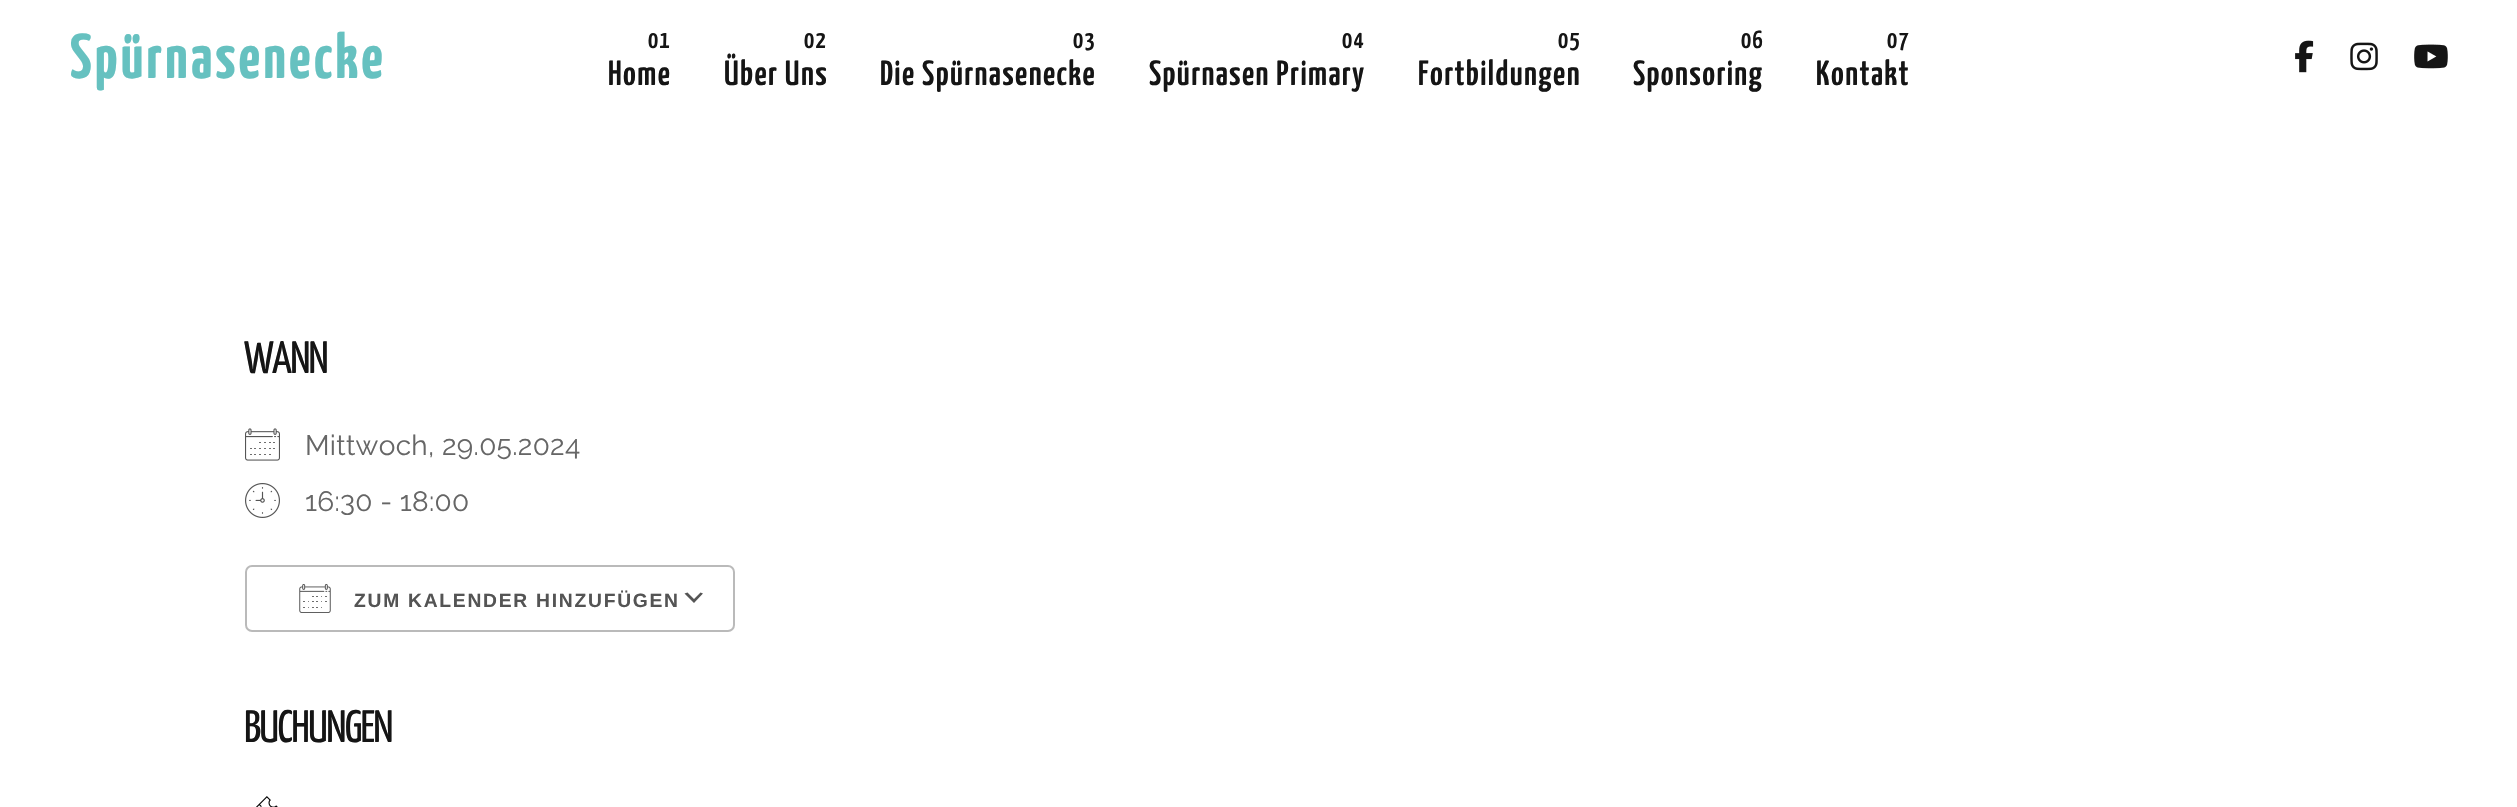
#include "include/core/SkBlurTypes.h"
#include "include/core/SkCanvas.h"
#include "include/core/SkData.h"
#include "include/core/SkFont.h"
#include "include/core/SkFontMgr.h"
#include "include/core/SkImage.h"
#include "include/core/SkMaskFilter.h"
#include "include/core/SkPaint.h"
#include "include/core/SkPathBuilder.h"
#include "include/core/SkTextBlob.h"
#include "include/effects/SkDashPathEffect.h"
#include "include/effects/SkGradientShader.h"
#include "include/utils/SkParsePath.h"

extern sk_sp<SkFontMgr> fontMgr;

static SkFont font(const char* family, int weight, float size, bool italic = false) {
    SkFontStyle style(weight, SkFontStyle::kNormal_Width,
        italic ? SkFontStyle::kItalic_Slant : SkFontStyle::kUpright_Slant);
    SkFont result(fontMgr->matchFamilyStyle(family, style), size);
    result.setSubpixel(true);
    return result;
}

static void drawTracked(SkCanvas* canvas, const char* s, float x, float y, const SkFont& font, const SkPaint& ink, float letter, float word) {
    std::vector<SkGlyphID> glyphs(font.countText(s, strlen(s), SkTextEncoding::kUTF8));
    std::vector<float> xs(glyphs.size());
    font.textToGlyphs(s, strlen(s), SkTextEncoding::kUTF8, glyphs);
    font.getXPos(glyphs, xs, x);
    float extra = 0;
    for (size_t i = 0; i < glyphs.size(); i++) {
        xs[i] += extra;
        extra += letter + word * (glyphs[i] == font.unicharToGlyph(' '));
    }
    canvas->drawTextBlob(SkTextBlob::MakeFromPosHGlyphs(glyphs, xs, y, font), 0, 0, ink);
}

static void drawPhoto(SkCanvas* canvas, const char* path, float x, float y, float w, float h) {
    auto image = SkImages::DeferredFromEncodedData(SkData::MakeFromFileName(path));
    canvas->drawImageRect(image, SkRect::MakeXYWH(x, y, w, h), SkSamplingOptions());
}

static SkPath parsePath(const char* data, bool evenOdd = false) {
    SkPath result = *SkParsePath::FromSVGString(data);
    if (evenOdd) result.setFillType(SkPathFillType::kEvenOdd);
    return result;
}

void draw(SkCanvas* canvas) {
    SkPaint paint;
    paint.setAntiAlias(true);
    canvas->clear(0xFFFFFFFF);
    SkFont font1 = font("Yanone Kaffeesatz", 700, 63);
    paint.setColor(0xFF66C1C0);
    drawTracked(canvas, "Spürnasenecke", 70, 78, font1, paint, 3.1f, 0);
    SkFont font2 = font("Yanone Kaffeesatz", 600, 25);
    paint.setColor(0xFF151515);
    drawTracked(canvas, "01", 648, 48, font2, paint, 1.4f, 0);
    SkFont font3 = font("Yanone Kaffeesatz", 600, 35);
    drawTracked(canvas, "Home", 608, 85, font3, paint, 1.4f, 0);
    drawTracked(canvas, "02", 804, 48, font2, paint, 1.4f, 0);
    drawTracked(canvas, "Über Uns", 724, 85, font3, paint, 1.4f, 0);
    drawTracked(canvas, "03", 1073, 48, font2, paint, 1.4f, 0);
    drawTracked(canvas, "Die Spürnasenecke", 880, 85, font3, paint, 1.4f, 0);
    drawTracked(canvas, "04", 1342, 48, font2, paint, 1.4f, 0);
    drawTracked(canvas, "Spürnasen Primary", 1149, 85, font3, paint, 1.4f, 0);
    drawTracked(canvas, "05", 1558, 48, font2, paint, 1.4f, 0);
    drawTracked(canvas, "Fortbildungen", 1418, 85, font3, paint, 1.4f, 0);
    drawTracked(canvas, "06", 1741, 48, font2, paint, 1.4f, 0);
    drawTracked(canvas, "Sponsoring", 1633, 85, font3, paint, 1.4f, 0);
    drawTracked(canvas, "07", 1887, 48, font2, paint, 1.4f, 0);
    drawTracked(canvas, "Kontakt", 1816, 85, font3, paint, 1.4f, 0);
    drawPhoto(canvas, "assets/img1.png", 2295, 40, 19, 33);
    drawPhoto(canvas, "assets/img2.png", 2350, 42, 28, 29);
    drawPhoto(canvas, "assets/img3.png", 2414, 44, 34, 25);
    SkFont font4 = font("Yanone Kaffeesatz", 400, 45.5f);
    drawTracked(canvas, "WANN", 244, 373, font4, paint, -1.75f, 0);
    drawPhoto(canvas, "assets/img4.png", 245, 428, 35, 33);
    SkFont font5 = font("Raleway", 400, 28);
    paint.setColor(0xFF666666);
    drawTracked(canvas, "Mittwoch, 29.05.2024", 305, 455, font5, paint, 0.3f, 0);
    drawPhoto(canvas, "assets/img5.png", 245, 483, 35, 35);
    drawTracked(canvas, "16:30 - 18:00", 305, 511, font5, paint, 0.3f, 0);
    paint.setColor(0xFF555555);
    canvas->drawPath(parsePath("M687.5 592.5L694 599L700.5 592.5L703 593.5L694 603L684.5 593.5Z"), paint);
    paint.setStroke(true);
    paint.setStrokeWidth(2);
    paint.setColor(0xFFBABABA);
    canvas->drawRoundRect(SkRect::MakeXYWH(246, 566, 488, 65), 6, 6, paint);
    drawPhoto(canvas, "assets/img6.png", 299, 584, 32, 29);
    SkFont font6 = font("Liberation Sans", 700, 19.25f);
    paint.setStroke(false);
    paint.setColor(0xFF545454);
    drawTracked(canvas, "ZUM KALENDER HINZUFÜGEN", 354, 607, font6, paint, 1.75f, 0);
    paint.setColor(0xFF151515);
    drawTracked(canvas, "BUCHUNGEN", 244, 742, font4, paint, -1.75f, 0);
    drawPhoto(canvas, "assets/img7.png", 256, 796, 22, 11);
}
